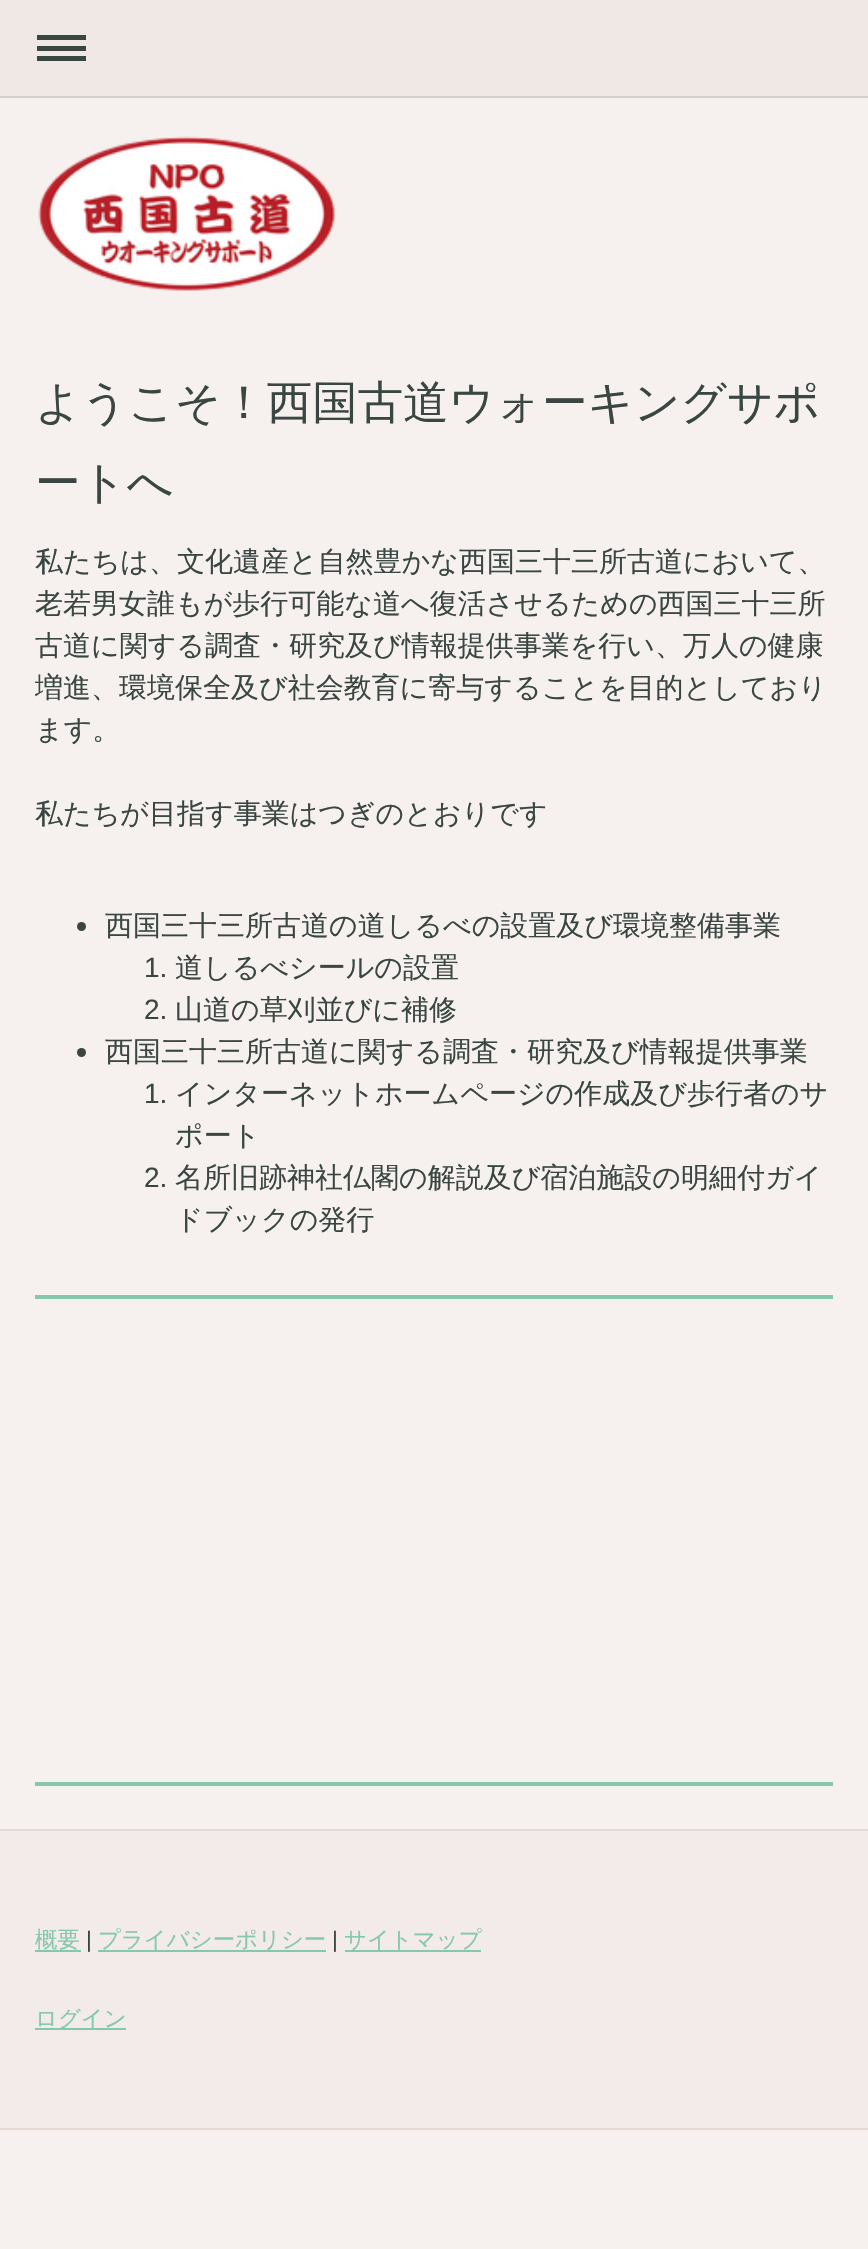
#include "include/core/SkBlurTypes.h"
#include "include/core/SkCanvas.h"
#include "include/core/SkData.h"
#include "include/core/SkFont.h"
#include "include/core/SkFontMgr.h"
#include "include/core/SkImage.h"
#include "include/core/SkMaskFilter.h"
#include "include/core/SkPaint.h"
#include "include/core/SkPathBuilder.h"
#include "include/core/SkTextBlob.h"
#include "include/effects/SkDashPathEffect.h"
#include "include/effects/SkGradientShader.h"
#include "include/utils/SkParsePath.h"

extern sk_sp<SkFontMgr> fontMgr;

static SkFont font(const char* family, int weight, float size, bool italic = false) {
    SkFontStyle style(weight, SkFontStyle::kNormal_Width,
        italic ? SkFontStyle::kItalic_Slant : SkFontStyle::kUpright_Slant);
    SkFont result(fontMgr->matchFamilyStyle(family, style), size);
    result.setSubpixel(true);
    return result;
}

static void drawLabel(SkCanvas* canvas, const char* s, float x, float y, const SkFont& font, SkColor color) {
    SkPaint ink(SkColor4f::FromColor(color));
    ink.setAntiAlias(true);
    canvas->drawString(s, x, y, font, ink);
}

static void fillRect(SkCanvas* canvas, float x, float y, float w, float h, SkColor color) {
    SkPaint ink(SkColor4f::FromColor(color));
    ink.setAntiAlias(true);
    canvas->drawRect(SkRect::MakeXYWH(x, y, w, h), ink);
}

static void drawPhoto(SkCanvas* canvas, const char* path, float x, float y, float w, float h) {
    auto image = SkImages::DeferredFromEncodedData(SkData::MakeFromFileName(path));
    canvas->drawImageRect(image, SkRect::MakeXYWH(x, y, w, h), SkSamplingOptions());
}

void draw(SkCanvas* canvas) {
    SkPaint paint;
    paint.setAntiAlias(true);
    canvas->clear(0xFFF6F1EF);
    fillRect(canvas, 0, 0, 868, 96, 0xFFF0E8E5);
    fillRect(canvas, 0, 96, 868, 2, 0xFFD5CECC);
    fillRect(canvas, 37, 46, 49, 5, 0xFF3A4642);
    fillRect(canvas, 37, 35, 49, 5, 0xFF3A4642);
    fillRect(canvas, 37, 56, 49, 5, 0xFF3A4642);
    drawPhoto(canvas, "assets/img1.png", 38, 136, 297, 155);
    SkFont font1 = font("WenQuanYi Zen Hei", 500, 45.5f);
    drawLabel(canvas, "ようこそ！西国古道ウォーキングサポ", 35, 418, font1, 0xFF3A4642);
    drawLabel(canvas, "ートへ", 35, 498, font1, 0xFF3A4642);
    SkFont font2 = font("WenQuanYi Zen Hei", 500, 28);
    drawLabel(canvas, "私たちは、文化遺産と自然豊かな西国三十三所古道において、", 35, 571, font2, 0xFF3A4642);
    drawLabel(canvas, "老若男女誰もが歩行可能な道へ復活させるための西国三十三所", 35, 613, font2, 0xFF3A4642);
    drawLabel(canvas, "古道に関する調査・研究及び情報提供事業を行い、万人の健康", 35, 655, font2, 0xFF3A4642);
    drawLabel(canvas, "増進、環境保全及び社会教育に寄与することを目的としており", 35, 697, font2, 0xFF3A4642);
    drawLabel(canvas, "ます。", 35, 739, font2, 0xFF3A4642);
    drawLabel(canvas, "私たちが目指す事業はつぎのとおりです", 35, 823, font2, 0xFF3A4642);
    paint.setColor(0xFF3A4642);
    canvas->drawCircle(81.5f, 926.5f, 4.5f, paint);
    drawLabel(canvas, "西国三十三所古道の道しるべの設置及び環境整備事業", 105, 935, font2, 0xFF3A4642);
    SkFont font3 = font("Arimo", 400, 28);
    drawLabel(canvas, "1.", 144, 977, font3, 0xFF3A4642);
    drawLabel(canvas, "道しるべシールの設置", 175, 977, font2, 0xFF3A4642);
    drawLabel(canvas, "2.", 144, 1019, font3, 0xFF3A4642);
    drawLabel(canvas, "山道の草刈並びに補修", 175, 1019, font2, 0xFF3A4642);
    canvas->drawCircle(81.5f, 1052.5f, 4.5f, paint);
    drawLabel(canvas, "西国三十三所古道に関する調査・研究及び情報提供事業", 105, 1061, font2, 0xFF3A4642);
    drawLabel(canvas, "1.", 144, 1103, font3, 0xFF3A4642);
    drawLabel(canvas, "インターネットホームページの作成及び歩行者のサ", 175, 1103, font2, 0xFF3A4642);
    drawLabel(canvas, "ポート", 175, 1145, font2, 0xFF3A4642);
    drawLabel(canvas, "2.", 144, 1187, font3, 0xFF3A4642);
    drawLabel(canvas, "名所旧跡神社仏閣の解説及び宿泊施設の明細付ガイ", 175, 1187, font2, 0xFF3A4642);
    drawLabel(canvas, "ドブックの発行", 175, 1229, font2, 0xFF3A4642);
    fillRect(canvas, 35, 1295, 798, 4, 0xFF86C7AF);
    fillRect(canvas, 35, 1782, 798, 4, 0xFF86C7AF);
    fillRect(canvas, 0, 1831, 868, 297, 0xFFF3EBE9);
    fillRect(canvas, 0, 1829, 868, 2, 0xFFE7DAD5);
    fillRect(canvas, 0, 2128, 868, 2, 0xFFE7DAD5);
    SkFont font4 = font("WenQuanYi Zen Hei", 500, 22.4f);
    drawLabel(canvas, "概要", 35, 1947, font4, 0xFF86C7AF);
    fillRect(canvas, 35, 1950, 46, 2, 0xFF86C7AF);
    SkFont font5 = font("Arimo", 400, 22.4f);
    drawLabel(canvas, "|", 86, 1947, font5, 0xFF3A4642);
    fillRect(canvas, 98, 1950, 228, 2, 0xFF86C7AF);
    drawLabel(canvas, "プライバシーポリシー", 98, 1947, font4, 0xFF86C7AF);
    drawLabel(canvas, "|", 332, 1947, font5, 0xFF3A4642);
    fillRect(canvas, 345, 1950, 136, 2, 0xFF86C7AF);
    drawLabel(canvas, "サイトマップ", 344, 1947, font4, 0xFF86C7AF);
    fillRect(canvas, 35, 2028, 91, 2, 0xFF86C7AF);
    drawLabel(canvas, "ログイン", 35, 2026, font4, 0xFF86C7AF);
}
